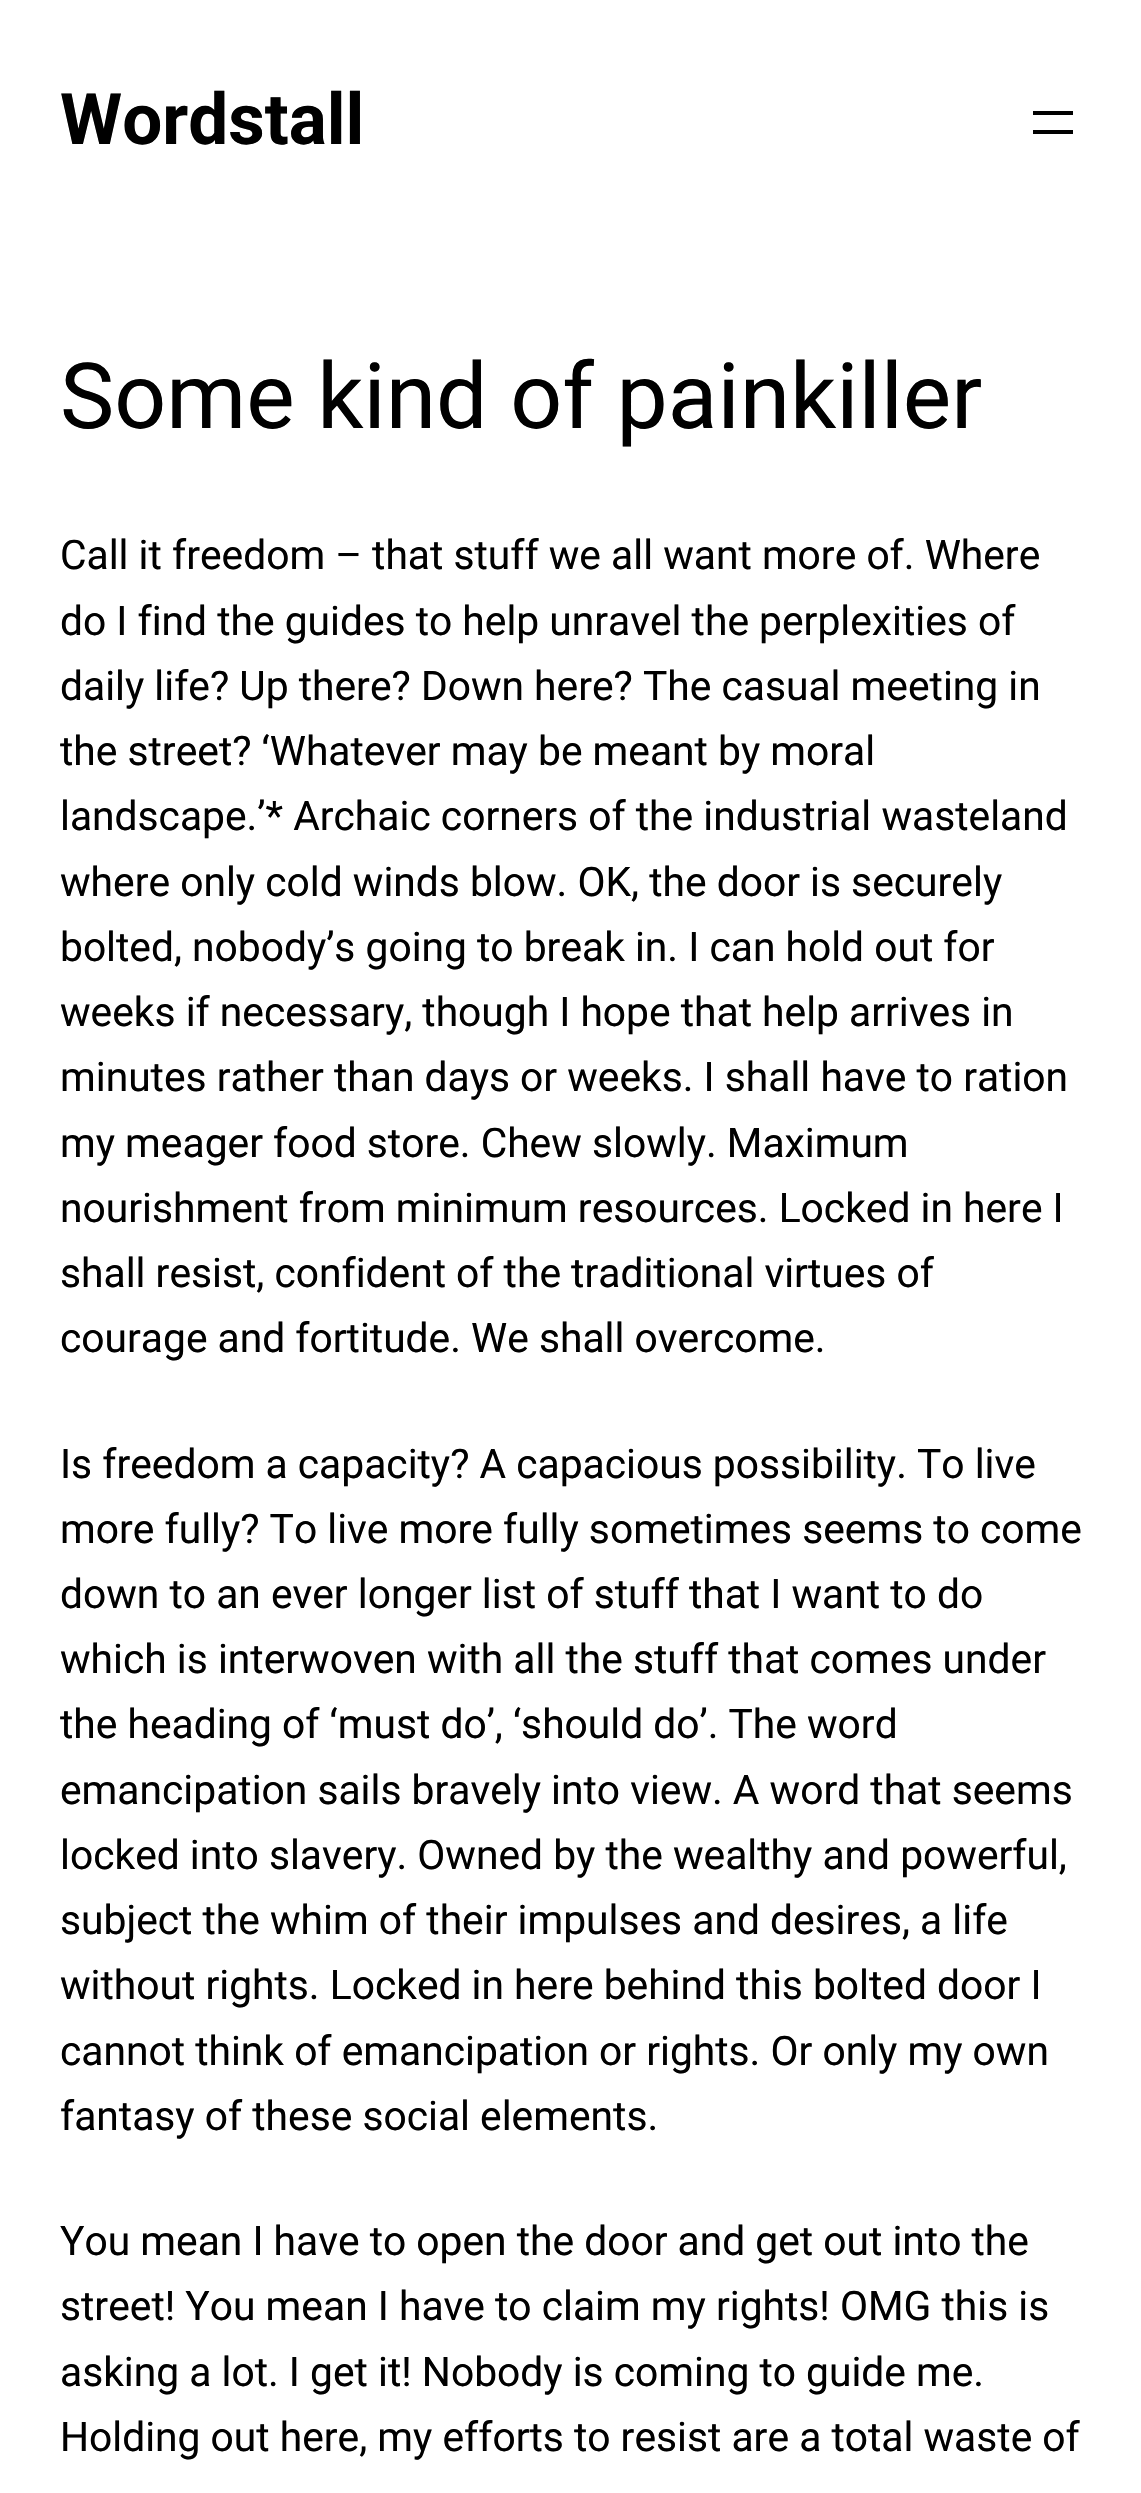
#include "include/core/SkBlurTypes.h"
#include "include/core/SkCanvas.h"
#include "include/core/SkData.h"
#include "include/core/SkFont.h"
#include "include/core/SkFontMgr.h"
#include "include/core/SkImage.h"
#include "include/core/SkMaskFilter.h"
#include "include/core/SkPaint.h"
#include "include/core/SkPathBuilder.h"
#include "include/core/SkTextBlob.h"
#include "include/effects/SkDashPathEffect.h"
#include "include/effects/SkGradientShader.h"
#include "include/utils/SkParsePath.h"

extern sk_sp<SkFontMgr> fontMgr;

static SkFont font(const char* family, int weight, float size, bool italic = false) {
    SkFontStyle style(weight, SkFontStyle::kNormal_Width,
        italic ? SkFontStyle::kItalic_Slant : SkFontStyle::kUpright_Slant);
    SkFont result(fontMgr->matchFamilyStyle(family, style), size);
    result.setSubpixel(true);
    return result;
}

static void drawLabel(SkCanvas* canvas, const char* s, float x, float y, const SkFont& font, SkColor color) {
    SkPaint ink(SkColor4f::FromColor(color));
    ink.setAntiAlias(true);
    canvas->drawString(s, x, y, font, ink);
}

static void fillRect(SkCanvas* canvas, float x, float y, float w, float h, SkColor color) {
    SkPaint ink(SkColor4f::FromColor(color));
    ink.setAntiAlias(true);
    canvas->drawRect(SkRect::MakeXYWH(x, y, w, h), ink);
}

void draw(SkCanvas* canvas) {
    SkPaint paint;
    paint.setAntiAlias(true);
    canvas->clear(0xFFFFFFFF);
    SkFont font1 = font("Roboto", 700, 71);
    drawLabel(canvas, "Wordstall", 60, 144, font1, 0xFF000000);
    fillRect(canvas, 1033, 111, 40, 4, 0xFF000000);
    fillRect(canvas, 1033, 130, 40, 4, 0xFF000000);
    SkFont font2 = font("Roboto", 400, 91.25f);
    drawLabel(canvas, "Some kind of painkiller", 60, 428, font2, 0xFF000000);
    SkFont font3 = font("Roboto", 400, 40.75f);
    drawLabel(canvas, "Call it freedom – that stuff we all want more of. Where", 60, 569, font3, 0xFF000000);
    drawLabel(canvas, "do I find the guides to help unravel the perplexities of", 60, 635, font3, 0xFF000000);
    drawLabel(canvas, "daily life? Up there? Down here? The casual meeting in", 60, 700, font3, 0xFF000000);
    drawLabel(canvas, "the street? ‘Whatever may be meant by moral", 60, 765, font3, 0xFF000000);
    drawLabel(canvas, "landscape.’* Archaic corners of the industrial wasteland", 60, 830, font3, 0xFF000000);
    drawLabel(canvas, "where only cold winds blow. OK, the door is securely", 60, 896, font3, 0xFF000000);
    drawLabel(canvas, "bolted, nobody’s going to break in. I can hold out for", 60, 961, font3, 0xFF000000);
    drawLabel(canvas, "weeks if necessary, though I hope that help arrives in", 60, 1026, font3, 0xFF000000);
    drawLabel(canvas, "minutes rather than days or weeks. I shall have to ration", 60, 1091, font3, 0xFF000000);
    drawLabel(canvas, "my meager food store. Chew slowly. Maximum", 60, 1157, font3, 0xFF000000);
    drawLabel(canvas, "nourishment from minimum resources. Locked in here I", 60, 1222, font3, 0xFF000000);
    drawLabel(canvas, "shall resist, confident of the traditional virtues of", 60, 1287, font3, 0xFF000000);
    drawLabel(canvas, "courage and fortitude. We shall overcome.", 60, 1352, font3, 0xFF000000);
    drawLabel(canvas, "Is freedom a capacity? A capacious possibility. To live", 60, 1478, font3, 0xFF000000);
    drawLabel(canvas, "more fully? To live more fully sometimes seems to come", 60, 1543, font3, 0xFF000000);
    drawLabel(canvas, "down to an ever longer list of stuff that I want to do", 60, 1608, font3, 0xFF000000);
    drawLabel(canvas, "which is interwoven with all the stuff that comes under", 60, 1673, font3, 0xFF000000);
    drawLabel(canvas, "the heading of ‘must do’, ‘should do’. The word", 60, 1738, font3, 0xFF000000);
    drawLabel(canvas, "emancipation sails bravely into view. A word that seems", 60, 1804, font3, 0xFF000000);
    drawLabel(canvas, "locked into slavery. Owned by the wealthy and powerful,", 60, 1869, font3, 0xFF000000);
    drawLabel(canvas, "subject the whim of their impulses and desires, a life", 60, 1934, font3, 0xFF000000);
    drawLabel(canvas, "without rights. Locked in here behind this bolted door I", 60, 1999, font3, 0xFF000000);
    drawLabel(canvas, "cannot think of emancipation or rights. Or only my own", 60, 2065, font3, 0xFF000000);
    drawLabel(canvas, "fantasy of these social elements.", 60, 2130, font3, 0xFF000000);
    drawLabel(canvas, "You mean I have to open the door and get out into the", 60, 2255, font3, 0xFF000000);
    drawLabel(canvas, "street! You mean I have to claim my rights! OMG this is", 60, 2320, font3, 0xFF000000);
    drawLabel(canvas, "asking a lot. I get it! Nobody is coming to guide me.", 60, 2386, font3, 0xFF000000);
    drawLabel(canvas, "Holding out here, my efforts to resist are a total waste of", 60, 2451, font3, 0xFF000000);
}
